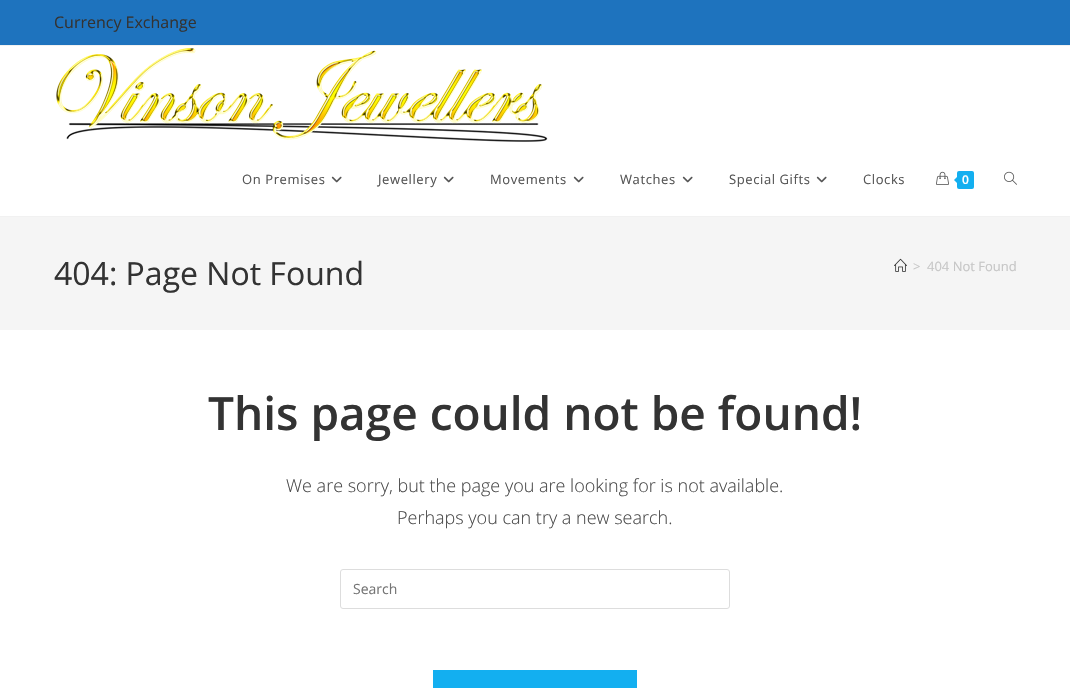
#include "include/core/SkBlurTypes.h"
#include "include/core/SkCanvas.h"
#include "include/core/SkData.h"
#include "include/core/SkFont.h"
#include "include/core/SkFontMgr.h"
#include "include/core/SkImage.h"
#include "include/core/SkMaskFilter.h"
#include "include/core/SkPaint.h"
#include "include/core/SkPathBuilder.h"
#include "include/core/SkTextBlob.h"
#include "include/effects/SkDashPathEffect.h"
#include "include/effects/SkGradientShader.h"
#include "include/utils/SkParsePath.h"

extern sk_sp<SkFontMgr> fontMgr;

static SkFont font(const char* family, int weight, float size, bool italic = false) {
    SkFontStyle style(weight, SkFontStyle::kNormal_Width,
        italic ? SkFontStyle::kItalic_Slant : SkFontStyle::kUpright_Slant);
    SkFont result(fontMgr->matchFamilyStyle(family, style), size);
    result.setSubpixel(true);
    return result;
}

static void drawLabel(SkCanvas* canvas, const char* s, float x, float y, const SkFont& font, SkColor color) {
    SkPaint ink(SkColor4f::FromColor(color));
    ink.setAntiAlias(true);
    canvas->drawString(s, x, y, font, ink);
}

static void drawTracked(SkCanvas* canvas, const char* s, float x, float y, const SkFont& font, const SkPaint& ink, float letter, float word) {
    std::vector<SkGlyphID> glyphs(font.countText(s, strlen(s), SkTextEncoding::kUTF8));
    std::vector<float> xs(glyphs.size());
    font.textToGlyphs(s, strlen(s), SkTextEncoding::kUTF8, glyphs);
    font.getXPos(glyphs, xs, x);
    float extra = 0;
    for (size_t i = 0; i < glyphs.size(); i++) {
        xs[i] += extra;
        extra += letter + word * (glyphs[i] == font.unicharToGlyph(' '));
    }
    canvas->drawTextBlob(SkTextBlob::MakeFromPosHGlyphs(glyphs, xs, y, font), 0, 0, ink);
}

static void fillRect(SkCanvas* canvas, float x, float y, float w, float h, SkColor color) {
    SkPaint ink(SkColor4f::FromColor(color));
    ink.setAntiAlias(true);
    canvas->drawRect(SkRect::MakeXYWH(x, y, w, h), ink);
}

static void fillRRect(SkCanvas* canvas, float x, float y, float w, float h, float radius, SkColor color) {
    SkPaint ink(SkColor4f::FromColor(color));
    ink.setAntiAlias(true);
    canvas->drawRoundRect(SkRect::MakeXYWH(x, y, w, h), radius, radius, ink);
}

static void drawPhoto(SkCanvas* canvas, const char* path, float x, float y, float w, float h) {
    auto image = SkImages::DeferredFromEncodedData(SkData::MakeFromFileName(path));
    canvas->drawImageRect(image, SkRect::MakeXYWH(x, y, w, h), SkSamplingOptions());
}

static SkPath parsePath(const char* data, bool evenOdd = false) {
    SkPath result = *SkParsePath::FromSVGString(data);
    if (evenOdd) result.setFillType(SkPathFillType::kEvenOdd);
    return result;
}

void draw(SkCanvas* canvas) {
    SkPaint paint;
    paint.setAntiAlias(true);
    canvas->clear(0xFFFFFFFF);
    fillRect(canvas, 0, 0, 1070, 45, 0xFF1E73BE);
    fillRect(canvas, 0, 45, 1070, 1, 0xFFF1F1F1);
    SkFont font1 = font("Open Sans", 400, 16);
    drawLabel(canvas, "Currency Exchange", 54, 28, font1, 0xFF333333);
    fillRect(canvas, 0, 216, 1070, 1, 0xFFF1F1F1);
    drawPhoto(canvas, "assets/img1.png", 56, 48, 492, 94);
    SkFont font2 = font("Open Sans", 400, 13);
    paint.setColor(0xFF555555);
    drawTracked(canvas, "On Premises", 242, 184, font2, paint, 0.6f, 0);
    drawPhoto(canvas, "assets/img2.png", 331, 176, 11, 7);
    drawTracked(canvas, "Jewellery", 378, 184, font2, paint, 0.6f, 0);
    drawPhoto(canvas, "assets/img2.png", 443, 176, 11, 7);
    drawTracked(canvas, "Movements", 490, 184, font2, paint, 0.6f, 0);
    drawPhoto(canvas, "assets/img2.png", 573, 176, 11, 7);
    drawTracked(canvas, "Watches", 620, 184, font2, paint, 0.6f, 0);
    drawPhoto(canvas, "assets/img2.png", 682, 176, 11, 7);
    drawTracked(canvas, "Special Gifts", 729, 184, font2, paint, 0.6f, 0);
    drawPhoto(canvas, "assets/img2.png", 816, 176, 11, 7);
    drawTracked(canvas, "Clocks", 863, 184, font2, paint, 0.6f, 0);
    drawPhoto(canvas, "assets/img3.png", 936, 171, 13, 14);
    fillRRect(canvas, 957, 171, 17, 18, 2, 0xFF13AFF0);
    paint.setColor(0xFF13AFF0);
    canvas->drawPath(parsePath("M959 175V185L954 180Z"), paint);
    SkFont font3 = font("Open Sans", 600, 12);
    drawLabel(canvas, "0", 962, 184, font3, 0xFFFFFFFF);
    drawPhoto(canvas, "assets/img4.png", 1004, 171, 13, 14);
    fillRect(canvas, 0, 217, 1070, 113, 0xFFF5F5F5);
    SkFont font4 = font("Open Sans", 400, 32);
    drawLabel(canvas, "404: Page Not Found", 54, 285, font4, 0xFF333333);
    drawPhoto(canvas, "assets/img5.png", 894, 258, 13, 14);
    drawLabel(canvas, ">", 913, 271, font2, 0xFFC6C6C6);
    drawLabel(canvas, "404 Not Found", 927, 271, font2, 0xFFC6C6C6);
    SkFont font5 = font("Open Sans", 600, 46);
    drawLabel(canvas, "This page could not be found!", 208, 430, font5, 0xFF333333);
    SkFont font6 = font("Open Sans", 300, 18);
    drawLabel(canvas, "We are sorry, but the page you are looking for is not available.", 286, 492, font6, 0xFF4A4A4A);
    drawLabel(canvas, "Perhaps you can try a new search.", 397, 524, font6, 0xFF4A4A4A);
    paint.setStroke(true);
    paint.setStrokeWidth(1);
    paint.setColor(0xFFDDDDDD);
    canvas->drawRoundRect(SkRect::MakeXYWH(340.5f, 569.5f, 389, 39), 2.5f, 2.5f, paint);
    SkFont font7 = font("Open Sans", 400, 14);
    drawLabel(canvas, "Search", 353, 594, font7, 0xFF757575);
    fillRect(canvas, 433, 670, 204, 18, 0xFF13AFF0);
}
